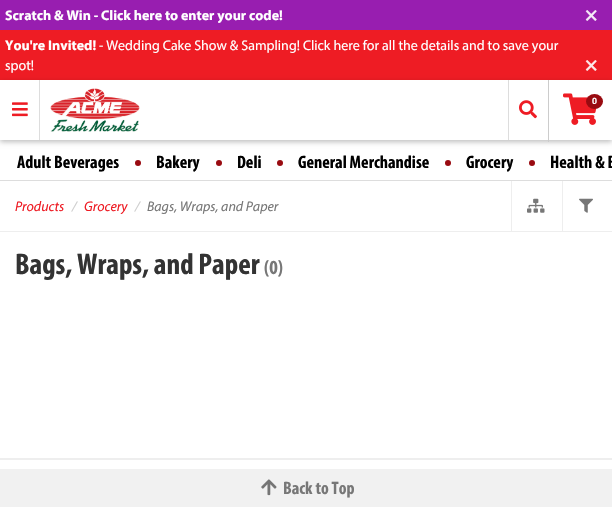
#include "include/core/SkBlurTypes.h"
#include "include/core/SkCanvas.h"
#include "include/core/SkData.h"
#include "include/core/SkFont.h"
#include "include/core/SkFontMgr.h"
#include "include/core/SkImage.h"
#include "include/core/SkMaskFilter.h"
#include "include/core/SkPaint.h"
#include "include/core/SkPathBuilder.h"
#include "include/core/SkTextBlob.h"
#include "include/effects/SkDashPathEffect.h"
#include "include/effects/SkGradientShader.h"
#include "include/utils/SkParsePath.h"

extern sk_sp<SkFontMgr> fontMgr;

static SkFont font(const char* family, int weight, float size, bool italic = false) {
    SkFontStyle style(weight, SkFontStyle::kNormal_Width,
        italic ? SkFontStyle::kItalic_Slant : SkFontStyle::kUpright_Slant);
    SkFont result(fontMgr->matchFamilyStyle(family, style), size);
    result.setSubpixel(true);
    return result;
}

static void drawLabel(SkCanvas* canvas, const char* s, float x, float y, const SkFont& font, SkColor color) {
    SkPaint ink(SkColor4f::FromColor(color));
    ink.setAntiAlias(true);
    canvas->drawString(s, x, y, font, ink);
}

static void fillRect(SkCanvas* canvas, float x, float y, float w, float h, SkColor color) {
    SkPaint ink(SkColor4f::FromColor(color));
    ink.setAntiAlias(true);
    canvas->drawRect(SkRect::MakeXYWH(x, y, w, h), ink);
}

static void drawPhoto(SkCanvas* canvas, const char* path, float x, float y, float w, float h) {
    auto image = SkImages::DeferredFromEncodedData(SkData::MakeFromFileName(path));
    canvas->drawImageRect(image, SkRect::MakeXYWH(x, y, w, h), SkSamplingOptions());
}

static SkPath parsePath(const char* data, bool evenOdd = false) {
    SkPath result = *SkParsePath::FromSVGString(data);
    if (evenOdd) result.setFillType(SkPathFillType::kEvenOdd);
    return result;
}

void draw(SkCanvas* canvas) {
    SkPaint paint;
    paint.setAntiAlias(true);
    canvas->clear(0xFFFFFFFF);
    fillRect(canvas, 0, 0, 612, 30, 0xFF981EB0);
    SkFont font1 = font("Myriad", 700, 14);
    drawLabel(canvas, "Scratch & Win - Click here to enter your code!", 5, 20, font1, 0xFFFFFFFF);
    SkFont font2 = font("Myriad", 700, 21);
    drawLabel(canvas, "×", 585, 21, font2, 0xFFF5E9F7);
    fillRect(canvas, 0, 30, 612, 50, 0xFFEE1C24);
    drawLabel(canvas, "You're Invited!", 5, 50, font1, 0xFFFFFFFF);
    SkFont font3 = font("Myriad", 400, 14);
    drawLabel(canvas, "- Wedding Cake Show & Sampling! Click here for all the details and to save your", 99, 50, font3, 0xFFFFFFFF);
    drawLabel(canvas, "spot!", 5, 70, font3, 0xFFFFFFFF);
    drawLabel(canvas, "×", 585, 71, font2, 0xFFFDE8E9);
    canvas->save();
    canvas->clipPath(parsePath("M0 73H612V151H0ZM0 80H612V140H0Z", true), true);
    paint.setColor(0x40000000);
    paint.setMaskFilter(SkMaskFilter::MakeBlur(kNormal_SkBlurStyle, 2.5f));
    canvas->drawRect(SkRect::MakeXYWH(0, 82, 612, 60), paint);
    paint.setMaskFilter(nullptr);
    canvas->restore();
    fillRect(canvas, 39, 80, 1, 60, 0xFFDDDDDD);
    drawPhoto(canvas, "assets/img1.png", 12, 102, 16, 15);
    drawPhoto(canvas, "assets/img2.png", 50, 88, 90, 44);
    fillRect(canvas, 508, 80, 1, 60, 0xFFDDDDDD);
    drawPhoto(canvas, "assets/img3.png", 519, 100, 18, 19);
    fillRect(canvas, 548, 80, 1, 62, 0xFFCCCCCC);
    drawPhoto(canvas, "assets/img4.png", 563, 93, 34, 32);
    paint.setColor(0xFF990B11);
    canvas->drawOval(SkRect::MakeXYWH(586, 94, 17, 15), paint);
    SkFont font4 = font("Liberation Sans", 700, 9);
    drawLabel(canvas, "0", 592, 104, font4, 0xFFFFFFFF);
    SkFont font5 = font("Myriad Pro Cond", 700, 18);
    drawLabel(canvas, "Adult Beverages", 17, 168, font5, 0xFF000000);
    canvas->drawCircle(138, 163, 3, paint);
    drawLabel(canvas, "Bakery", 156, 168, font5, 0xFF000000);
    canvas->drawCircle(219, 163, 3, paint);
    drawLabel(canvas, "Deli", 237, 168, font5, 0xFF000000);
    canvas->drawCircle(280, 163, 3, paint);
    drawLabel(canvas, "General Merchandise", 298, 168, font5, 0xFF000000);
    canvas->drawCircle(448, 163, 3, paint);
    drawLabel(canvas, "Grocery", 466, 168, font5, 0xFF000000);
    canvas->drawCircle(532, 163, 3, paint);
    drawLabel(canvas, "Health & B", 550, 168, font5, 0xFF000000);
    fillRect(canvas, 0, 180, 612, 1, 0xFFDDDDDD);
    fillRect(canvas, 0, 231, 612, 1, 0xFFEEEEEE);
    SkFont font6 = font("Myriad", 400, 14, true);
    drawLabel(canvas, "Products", 15, 211, font6, 0xFFEE1C24);
    drawLabel(canvas, "/", 72, 211, font6, 0xFFCCCCCC);
    drawLabel(canvas, "Grocery", 84, 211, font6, 0xFFEE1C24);
    drawLabel(canvas, "/", 135, 211, font6, 0xFFCCCCCC);
    drawLabel(canvas, "Bags, Wraps, and Paper", 147, 211, font6, 0xFF777777);
    fillRect(canvas, 511, 181, 1, 50, 0xFFEEEEEE);
    drawPhoto(canvas, "assets/img5.png", 527, 198, 18, 15);
    fillRect(canvas, 562, 181, 1, 50, 0xFFEEEEEE);
    drawPhoto(canvas, "assets/img6.png", 579, 198, 14, 15);
    SkFont font7 = font("Myriad Pro Cond", 700, 30);
    drawLabel(canvas, "Bags, Wraps, and Paper", 15, 274, font7, 0xFF333333);
    SkFont font8 = font("Myriad Pro Cond", 700, 20);
    drawLabel(canvas, "(0)", 264, 274, font8, 0xFF777777);
    fillRect(canvas, 0, 469, 612, 38, 0xFFF1F1F1);
    drawPhoto(canvas, "assets/img7.png", 261, 479, 16, 17);
    drawLabel(canvas, "Back to Top", 283, 494, font5, 0xFF777777);
    fillRect(canvas, 0, 458, 612, 2, 0xFFEEEEEE);
}
